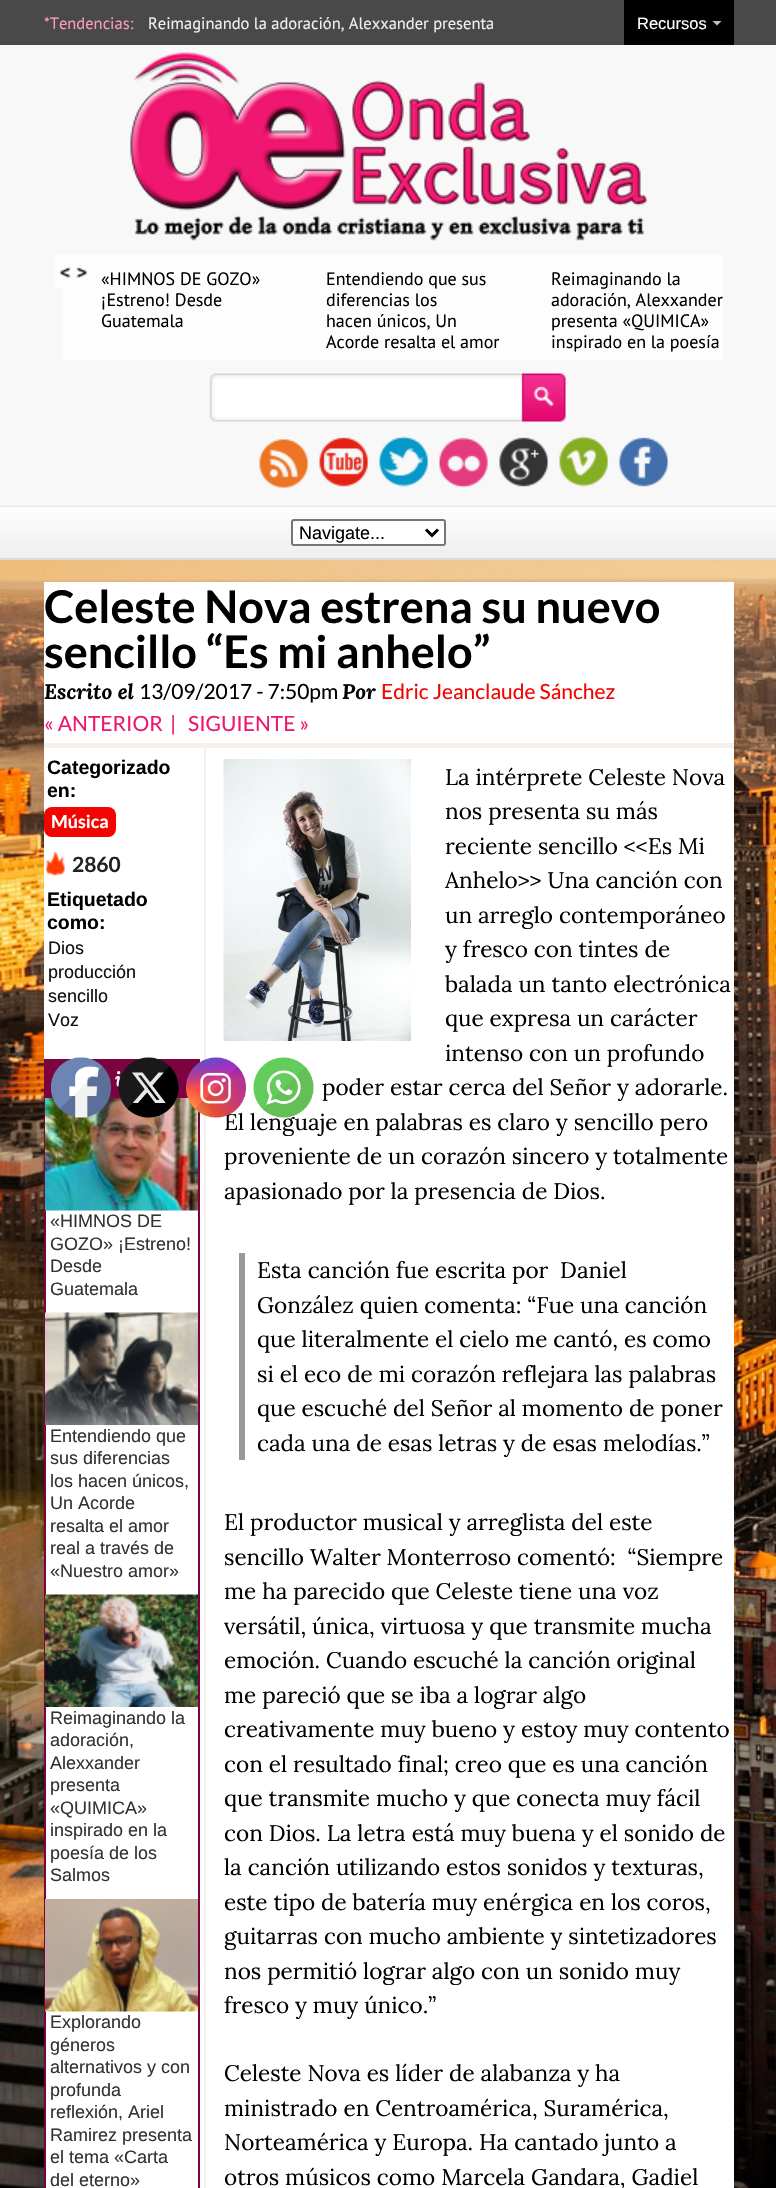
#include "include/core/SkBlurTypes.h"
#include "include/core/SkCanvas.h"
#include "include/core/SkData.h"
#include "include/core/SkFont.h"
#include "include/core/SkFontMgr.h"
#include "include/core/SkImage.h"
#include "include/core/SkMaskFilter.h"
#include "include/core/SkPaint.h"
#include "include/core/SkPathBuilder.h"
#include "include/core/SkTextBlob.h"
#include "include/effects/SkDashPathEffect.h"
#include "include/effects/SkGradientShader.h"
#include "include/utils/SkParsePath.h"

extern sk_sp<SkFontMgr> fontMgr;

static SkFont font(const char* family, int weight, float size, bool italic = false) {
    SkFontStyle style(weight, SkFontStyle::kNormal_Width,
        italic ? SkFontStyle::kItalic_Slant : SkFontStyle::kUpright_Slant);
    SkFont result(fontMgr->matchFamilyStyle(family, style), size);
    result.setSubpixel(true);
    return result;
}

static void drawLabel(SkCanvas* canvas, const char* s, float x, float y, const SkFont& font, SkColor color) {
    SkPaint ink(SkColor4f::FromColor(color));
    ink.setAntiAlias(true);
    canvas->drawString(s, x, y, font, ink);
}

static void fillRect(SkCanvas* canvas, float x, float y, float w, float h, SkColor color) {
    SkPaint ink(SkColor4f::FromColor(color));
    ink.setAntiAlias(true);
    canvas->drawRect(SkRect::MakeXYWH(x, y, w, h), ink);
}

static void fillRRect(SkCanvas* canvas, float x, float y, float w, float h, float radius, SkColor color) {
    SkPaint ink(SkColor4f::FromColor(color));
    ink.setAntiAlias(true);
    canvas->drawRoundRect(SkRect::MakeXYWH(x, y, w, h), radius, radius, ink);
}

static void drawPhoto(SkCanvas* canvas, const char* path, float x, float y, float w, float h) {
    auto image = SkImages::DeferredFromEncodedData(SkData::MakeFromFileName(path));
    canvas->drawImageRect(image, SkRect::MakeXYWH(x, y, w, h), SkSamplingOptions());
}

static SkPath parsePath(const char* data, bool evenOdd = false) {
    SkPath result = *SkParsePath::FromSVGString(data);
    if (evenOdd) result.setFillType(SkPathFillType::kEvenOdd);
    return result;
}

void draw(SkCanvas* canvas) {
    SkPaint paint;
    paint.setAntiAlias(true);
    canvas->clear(0xFFFFFFFF);
    drawPhoto(canvas, "assets/img1.png", 0, 560, 776, 1628);
    fillRect(canvas, 0, 0, 776, 45, 0xFF494949);
    SkFont font1 = font("PT Sans", 400, 16.5f);
    drawLabel(canvas, "*Tendencias:", 44, 29, font1, 0xFFFF99C3);
    drawLabel(canvas, "Reimaginando la adoración, Alexxander presenta", 148, 29, font1, 0xFFEEEEEE);
    fillRect(canvas, 624, 0, 110, 45, 0xFF000000);
    SkFont font2 = font("Liberation Sans", 400, 16.5f);
    drawLabel(canvas, "Recursos", 637, 29, font2, 0xFFFFFFFF);
    paint.setColor(0xFFC0C0C0);
    canvas->drawPath(parsePath("M712.5 21H721.5L717 25.5Z"), paint);
    fillRect(canvas, 0, 45, 776, 461, 0xFFF8F8F8);
    drawPhoto(canvas, "assets/img2.png", 130, 52, 517, 189);
    fillRect(canvas, 54, 255, 9, 33, 0xFFFDFDFD);
    fillRect(canvas, 63, 255, 660, 105, 0xFFFDFDFD);
    drawPhoto(canvas, "assets/img3.png", 59, 267, 12, 11);
    drawPhoto(canvas, "assets/img4.png", 76, 267, 11, 11);
    SkFont font3 = font("PT Sans", 400, 18);
    drawLabel(canvas, "«HIMNOS DE GOZO»", 101, 285, font3, 0xFF000000);
    drawLabel(canvas, "¡Estreno! Desde", 101, 306, font3, 0xFF000000);
    drawLabel(canvas, "Guatemala", 101, 327, font3, 0xFF000000);
    drawLabel(canvas, "Entendiendo que sus", 326, 285, font3, 0xFF000000);
    drawLabel(canvas, "diferencias los", 326, 306, font3, 0xFF000000);
    drawLabel(canvas, "hacen únicos, Un", 326, 327, font3, 0xFF000000);
    drawLabel(canvas, "Acorde resalta el amor", 326, 348, font3, 0xFF000000);
    drawLabel(canvas, "Reimaginando la", 551, 285, font3, 0xFF000000);
    drawLabel(canvas, "adoración, Alexxander", 551, 306, font3, 0xFF000000);
    drawLabel(canvas, "presenta «QUIMICA»", 551, 327, font3, 0xFF000000);
    drawLabel(canvas, "inspirado en la poesía", 551, 348, font3, 0xFF000000);
    drawPhoto(canvas, "assets/img5.png", 209, 373, 357, 49);
    drawPhoto(canvas, "assets/img6.png", 259, 439, 50, 49);
    drawPhoto(canvas, "assets/img7.png", 319, 437, 50, 50);
    drawPhoto(canvas, "assets/img8.png", 379, 436, 50, 51);
    drawPhoto(canvas, "assets/img9.png", 438, 437, 50, 51);
    drawPhoto(canvas, "assets/img10.png", 499, 437, 50, 50);
    drawPhoto(canvas, "assets/img11.png", 559, 436, 50, 51);
    drawPhoto(canvas, "assets/img12.png", 619, 437, 50, 50);
    drawPhoto(canvas, "assets/img13.png", 0, 505, 776, 53);
    fillRect(canvas, 0, 558, 776, 2, 0xFFDADADA);
    paint.setColor(0xFFFFFFFF);
    canvas->drawRoundRect(SkRect::MakeXYWH(292, 520, 153, 25), 2, 2, paint);
    paint.setStroke(true);
    paint.setStrokeWidth(2);
    paint.setColor(0xFF767676);
    canvas->drawRoundRect(SkRect::MakeXYWH(292, 520, 153, 25), 2, 2, paint);
    paint.setStrokeWidth(3);
    paint.setColor(0xFF000000);
    canvas->drawPath(parsePath("M426 529.5L432 535.5L438 529.5"), paint);
    SkFont font4 = font("Liberation Sans", 400, 18);
    drawLabel(canvas, "Navigate...", 299, 539, font4, 0xFF000000);
    fillRect(canvas, 44, 582, 690, 1606, 0xFFFFFFFF);
    fillRect(canvas, 44, 743, 690, 5, 0xFFF5F0E9);
    SkFont font5 = font("Lato", 700, 45);
    drawLabel(canvas, "Celeste Nova estrena su nuevo", 44, 623, font5, 0xFF000000);
    drawLabel(canvas, "sencillo “Es mi anhelo”", 44, 668, font5, 0xFF000000);
    SkFont font6 = font("Lora", 700, 21, true);
    drawLabel(canvas, "Escrito el", 44, 699, font6, 0xFF000000);
    SkFont font7 = font("Lato", 400, 21);
    drawLabel(canvas, "13/09/2017 - 7:50pm", 139, 699, font7, 0xFF000000);
    drawLabel(canvas, "Por", 342, 699, font6, 0xFF000000);
    drawLabel(canvas, "Edric Jeanclaude Sánchez", 381, 699, font7, 0xFFF10500);
    drawLabel(canvas, "« ANTERIOR", 44, 731, font7, 0xFFF0176E);
    drawLabel(canvas, "|", 170, 731, font7, 0xFFF0176E);
    drawLabel(canvas, "SIGUIENTE »", 188, 731, font7, 0xFFF0176E);
    fillRect(canvas, 204, 747, 2, 1441, 0xFFF5F0E9);
    SkFont font8 = font("Liberation Sans", 700, 19.5f);
    drawLabel(canvas, "Categorizado", 47, 774, font8, 0xFF000000);
    drawLabel(canvas, "en:", 47, 797, font8, 0xFF000000);
    fillRRect(canvas, 44, 807, 72, 30, 8, 0xFFF10500);
    SkFont font9 = font("Lato", 700, 18);
    drawLabel(canvas, "Música", 51, 828, font9, 0xFFFFFFFF);
    drawPhoto(canvas, "assets/img14.png", 46, 852, 19, 24);
    SkFont font10 = font("Lato", 700, 21);
    drawLabel(canvas, "2860", 72, 872, font10, 0xFF222222);
    drawLabel(canvas, "Etiquetado", 47, 906, font8, 0xFF000000);
    drawLabel(canvas, "como:", 47, 929, font8, 0xFF000000);
    drawLabel(canvas, "Dios", 48, 954, font4, 0xFF111111);
    drawLabel(canvas, "producción", 48, 978, font4, 0xFF111111);
    drawLabel(canvas, "sencillo", 48, 1002, font4, 0xFF111111);
    drawLabel(canvas, "Voz", 48, 1026, font4, 0xFF111111);
    paint.setStrokeWidth(2);
    paint.setColor(0xFF7B0340);
    canvas->drawRect(SkRect::MakeXYWH(45, 1060, 154, 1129), paint);
    fillRect(canvas, 46, 1061, 152, 37, 0xFF7B0340);
    SkFont font11 = font("Lora", 700, 19.5f, true);
    drawLabel(canvas, "i", 115, 1086, font11, 0xFFFFFFFF);
    drawPhoto(canvas, "assets/img15.png", 45, 1098, 153, 113);
    drawLabel(canvas, "«HIMNOS DE", 50, 1227, font4, 0xFF333333);
    drawLabel(canvas, "GOZO» ¡Estreno!", 50, 1250, font4, 0xFF333333);
    drawLabel(canvas, "Desde", 50, 1272, font4, 0xFF333333);
    drawLabel(canvas, "Guatemala", 50, 1295, font4, 0xFF333333);
    drawPhoto(canvas, "assets/img16.png", 45, 1312, 153, 113);
    drawLabel(canvas, "Entendiendo que", 50, 1442, font4, 0xFF333333);
    drawLabel(canvas, "sus diferencias", 50, 1464, font4, 0xFF333333);
    drawLabel(canvas, "los hacen únicos,", 50, 1487, font4, 0xFF333333);
    drawLabel(canvas, "Un Acorde", 50, 1509, font4, 0xFF333333);
    drawLabel(canvas, "resalta el amor", 50, 1532, font4, 0xFF333333);
    drawLabel(canvas, "real a través de", 50, 1554, font4, 0xFF333333);
    drawLabel(canvas, "«Nuestro amor»", 50, 1577, font4, 0xFF333333);
    drawPhoto(canvas, "assets/img17.png", 45, 1594, 153, 113);
    drawLabel(canvas, "Reimaginando la", 50, 1724, font4, 0xFF333333);
    drawLabel(canvas, "adoración,", 50, 1746, font4, 0xFF333333);
    drawLabel(canvas, "Alexxander", 50, 1769, font4, 0xFF333333);
    drawLabel(canvas, "presenta", 50, 1791, font4, 0xFF333333);
    drawLabel(canvas, "«QUIMICA»", 50, 1814, font4, 0xFF333333);
    drawLabel(canvas, "inspirado en la", 50, 1836, font4, 0xFF333333);
    drawLabel(canvas, "poesía de los", 50, 1859, font4, 0xFF333333);
    drawLabel(canvas, "Salmos", 50, 1881, font4, 0xFF333333);
    drawPhoto(canvas, "assets/img18.png", 45, 1899, 153, 113);
    drawLabel(canvas, "Explorando", 50, 2028, font4, 0xFF333333);
    drawLabel(canvas, "géneros", 50, 2051, font4, 0xFF333333);
    drawLabel(canvas, "alternativos y con", 50, 2073, font4, 0xFF333333);
    drawLabel(canvas, "profunda", 50, 2096, font4, 0xFF333333);
    drawLabel(canvas, "reflexión, Ariel", 50, 2118, font4, 0xFF333333);
    drawLabel(canvas, "Ramirez presenta", 50, 2141, font4, 0xFF333333);
    drawLabel(canvas, "el tema «Carta", 50, 2163, font4, 0xFF333333);
    drawLabel(canvas, "del eterno»", 50, 2186, font4, 0xFF333333);
    drawPhoto(canvas, "assets/img19.png", 223, 759, 188, 282);
    SkFont font12 = font("Lora", 400, 22.5f);
    drawLabel(canvas, "La intérprete Celeste Nova", 445, 785, font12, 0xFF000000);
    drawLabel(canvas, "nos presenta su más", 445, 819, font12, 0xFF000000);
    drawLabel(canvas, "reciente sencillo <<Es Mi", 445, 854, font12, 0xFF000000);
    drawLabel(canvas, "Anhelo>> Una canción con", 445, 888, font12, 0xFF000000);
    drawLabel(canvas, "un arreglo contemporáneo", 445, 923, font12, 0xFF000000);
    drawLabel(canvas, "y fresco con tintes de", 445, 957, font12, 0xFF000000);
    drawLabel(canvas, "balada un tanto electrónica", 445, 992, font12, 0xFF000000);
    drawLabel(canvas, "que expresa un carácter", 445, 1026, font12, 0xFF000000);
    drawLabel(canvas, "intenso con un profundo", 445, 1061, font12, 0xFF000000);
    drawLabel(canvas, "poder estar cerca del Señor y adorarle.", 322, 1095, font12, 0xFF000000);
    drawLabel(canvas, "El lenguaje en palabras es claro y sencillo pero", 224, 1130, font12, 0xFF000000);
    drawLabel(canvas, "proveniente de un corazón sincero y totalmente", 224, 1164, font12, 0xFF000000);
    drawLabel(canvas, "apasionado por la presencia de Dios.", 224, 1199, font12, 0xFF000000);
    fillRect(canvas, 239, 1253, 6, 207, 0xFF999999);
    drawLabel(canvas, "Esta canción fue escrita por  Daniel", 257, 1278, font12, 0xFF000000);
    drawLabel(canvas, "González quien comenta: “Fue una canción", 257, 1313, font12, 0xFF000000);
    drawLabel(canvas, "que literalmente el cielo me cantó, es como", 257, 1347, font12, 0xFF000000);
    drawLabel(canvas, "si el eco de mi corazón reflejara las palabras", 257, 1382, font12, 0xFF000000);
    drawLabel(canvas, "que escuché del Señor al momento de poner", 257, 1416, font12, 0xFF000000);
    drawLabel(canvas, "cada una de esas letras y de esas melodías.”", 257, 1451, font12, 0xFF000000);
    drawLabel(canvas, "El productor musical y arreglista del este", 224, 1530, font12, 0xFF000000);
    drawLabel(canvas, "sencillo Walter Monterroso comentó:  “Siempre", 224, 1565, font12, 0xFF000000);
    drawLabel(canvas, "me ha parecido que Celeste tiene una voz", 224, 1599, font12, 0xFF000000);
    drawLabel(canvas, "versátil, única, virtuosa y que transmite mucha", 224, 1634, font12, 0xFF000000);
    drawLabel(canvas, "emoción. Cuando escuché la canción original", 224, 1668, font12, 0xFF000000);
    drawLabel(canvas, "me pareció que se iba a lograr algo", 224, 1703, font12, 0xFF000000);
    drawLabel(canvas, "creativamente muy bueno y estoy muy contento", 224, 1737, font12, 0xFF000000);
    drawLabel(canvas, "con el resultado final; creo que es una canción", 224, 1772, font12, 0xFF000000);
    drawLabel(canvas, "que transmite mucho y que conecta muy fácil", 224, 1806, font12, 0xFF000000);
    drawLabel(canvas, "con Dios. La letra está muy buena y el sonido de", 224, 1841, font12, 0xFF000000);
    drawLabel(canvas, "la canción utilizando estos sonidos y texturas,", 224, 1875, font12, 0xFF000000);
    drawLabel(canvas, "este tipo de batería muy enérgica en los coros,", 224, 1910, font12, 0xFF000000);
    drawLabel(canvas, "guitarras con mucho ambiente y sintetizadores", 224, 1944, font12, 0xFF000000);
    drawLabel(canvas, "nos permitió lograr algo con un sonido muy", 224, 1979, font12, 0xFF000000);
    drawLabel(canvas, "fresco y muy único.”", 224, 2013, font12, 0xFF000000);
    drawLabel(canvas, "Celeste Nova es líder de alabanza y ha", 224, 2081, font12, 0xFF000000);
    drawLabel(canvas, "ministrado en Centroamérica, Suramérica,", 224, 2116, font12, 0xFF000000);
    drawLabel(canvas, "Norteamérica y Europa. Ha cantado junto a", 224, 2150, font12, 0xFF000000);
    drawLabel(canvas, "otros músicos como Marcela Gandara, Gadiel", 224, 2185, font12, 0xFF000000);
    drawPhoto(canvas, "assets/img20.png", 51, 1057, 60, 61);
    drawPhoto(canvas, "assets/img21.png", 118, 1057, 61, 61);
    drawPhoto(canvas, "assets/img22.png", 186, 1057, 60, 61);
    drawPhoto(canvas, "assets/img23.png", 253, 1057, 61, 61);
}
